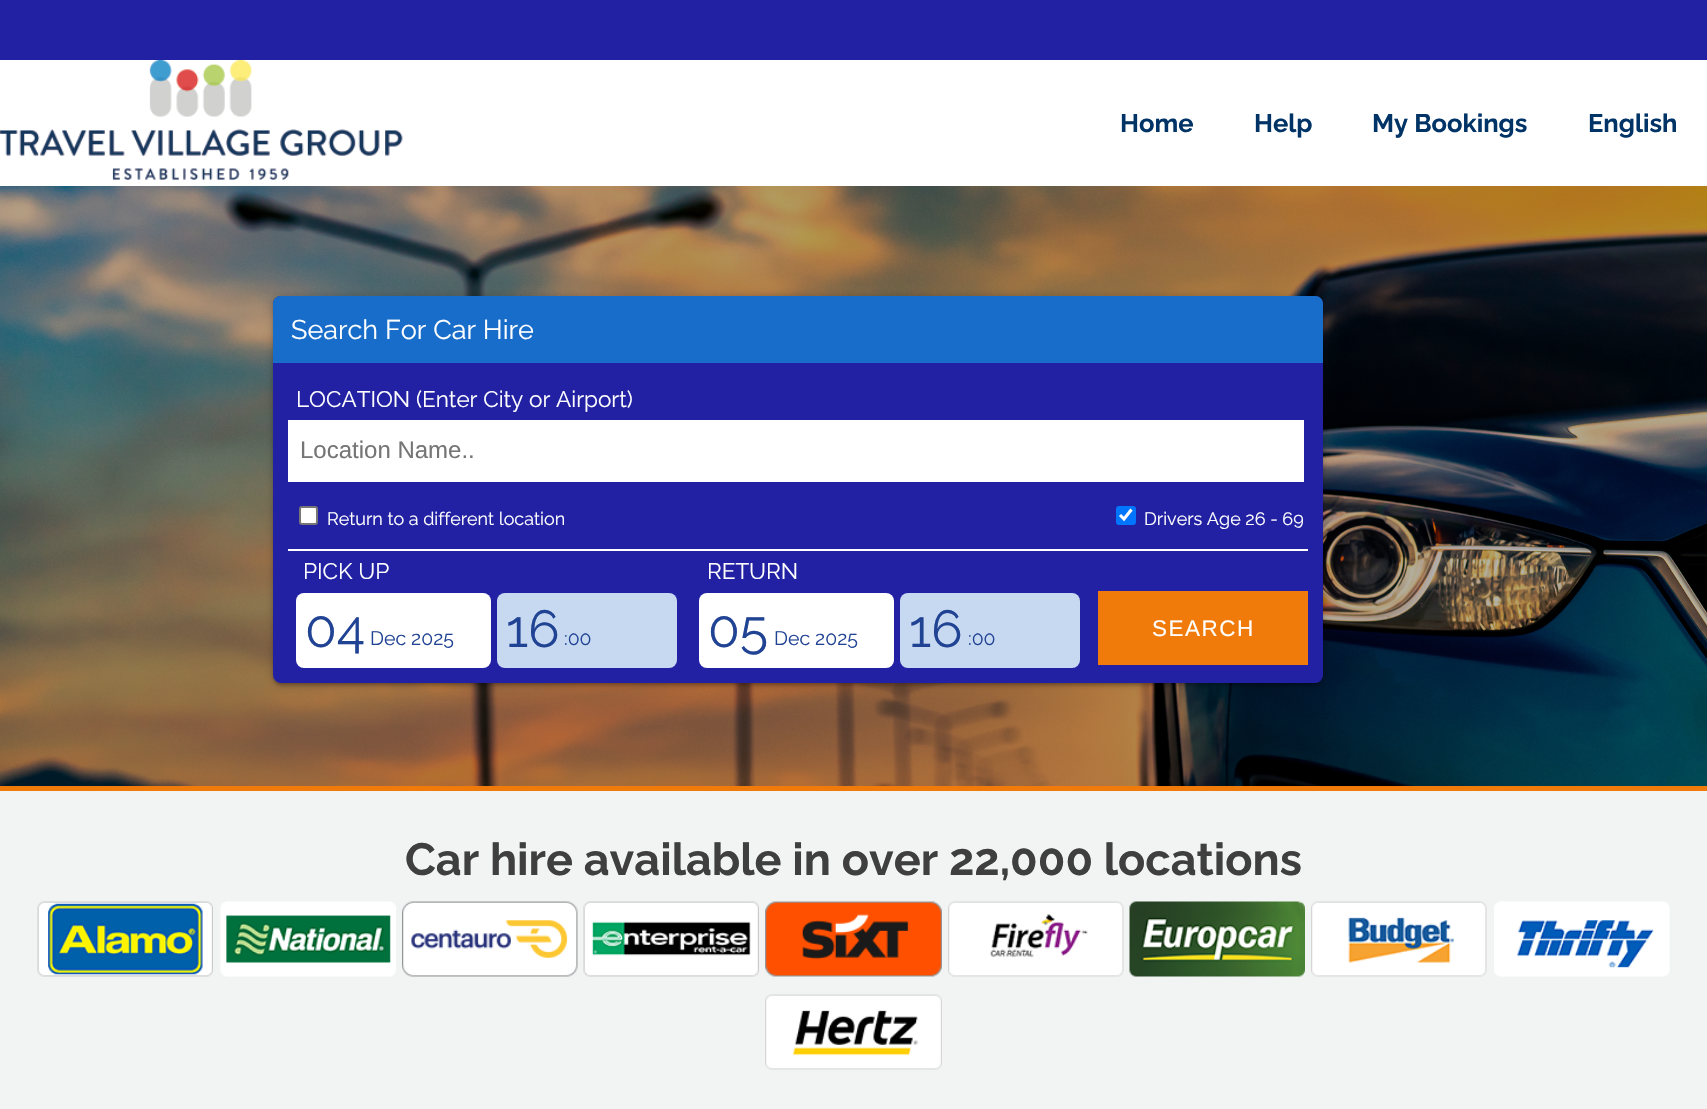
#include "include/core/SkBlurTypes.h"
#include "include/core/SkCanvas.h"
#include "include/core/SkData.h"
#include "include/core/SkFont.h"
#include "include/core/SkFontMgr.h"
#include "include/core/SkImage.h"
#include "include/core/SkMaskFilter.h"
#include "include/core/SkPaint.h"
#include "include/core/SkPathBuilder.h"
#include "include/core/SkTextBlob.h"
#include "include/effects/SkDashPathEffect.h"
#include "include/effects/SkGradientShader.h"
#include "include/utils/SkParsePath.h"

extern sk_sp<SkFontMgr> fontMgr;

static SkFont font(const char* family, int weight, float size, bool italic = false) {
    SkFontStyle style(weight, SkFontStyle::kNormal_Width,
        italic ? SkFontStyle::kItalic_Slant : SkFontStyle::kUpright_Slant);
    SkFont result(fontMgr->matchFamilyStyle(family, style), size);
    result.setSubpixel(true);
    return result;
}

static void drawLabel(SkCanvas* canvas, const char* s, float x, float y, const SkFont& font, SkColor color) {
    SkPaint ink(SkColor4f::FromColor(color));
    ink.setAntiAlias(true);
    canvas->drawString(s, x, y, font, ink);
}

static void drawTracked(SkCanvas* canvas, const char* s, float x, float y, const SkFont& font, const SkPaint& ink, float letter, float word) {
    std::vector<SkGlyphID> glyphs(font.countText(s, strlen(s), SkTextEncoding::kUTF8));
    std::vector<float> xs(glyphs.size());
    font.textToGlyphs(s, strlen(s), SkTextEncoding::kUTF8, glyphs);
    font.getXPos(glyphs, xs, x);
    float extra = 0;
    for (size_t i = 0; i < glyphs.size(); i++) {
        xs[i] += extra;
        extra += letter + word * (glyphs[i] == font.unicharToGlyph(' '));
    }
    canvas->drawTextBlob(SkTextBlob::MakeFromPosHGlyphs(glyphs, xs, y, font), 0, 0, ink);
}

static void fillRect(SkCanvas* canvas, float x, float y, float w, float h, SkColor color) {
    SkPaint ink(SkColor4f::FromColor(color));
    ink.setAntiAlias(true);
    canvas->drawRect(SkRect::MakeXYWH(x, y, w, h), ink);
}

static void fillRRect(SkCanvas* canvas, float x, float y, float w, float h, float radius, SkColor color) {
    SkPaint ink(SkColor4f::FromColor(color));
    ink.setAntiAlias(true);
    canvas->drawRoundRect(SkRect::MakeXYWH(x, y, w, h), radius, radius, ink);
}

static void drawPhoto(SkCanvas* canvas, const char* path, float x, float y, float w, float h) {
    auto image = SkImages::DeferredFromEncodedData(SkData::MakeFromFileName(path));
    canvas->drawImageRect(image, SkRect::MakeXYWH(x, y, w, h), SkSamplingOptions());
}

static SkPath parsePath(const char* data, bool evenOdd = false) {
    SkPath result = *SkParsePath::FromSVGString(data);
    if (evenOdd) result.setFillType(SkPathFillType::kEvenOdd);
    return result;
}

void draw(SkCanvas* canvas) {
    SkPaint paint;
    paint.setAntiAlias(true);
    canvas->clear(0xFF2221A3);
    fillRect(canvas, 0, 60, 1707, 126, 0xFFFFFFFF);
    drawPhoto(canvas, "assets/img1.png", 0, 60, 403, 120);
    SkFont font1 = font("Raleway", 700, 25.5f);
    drawLabel(canvas, "Home", 1120, 132, font1, 0xFF003366);
    drawLabel(canvas, "Help", 1254, 132, font1, 0xFF003366);
    drawLabel(canvas, "My Bookings", 1372, 132, font1, 0xFF003366);
    drawLabel(canvas, "English", 1588, 132, font1, 0xFF003366);
    drawPhoto(canvas, "assets/img2.png", 0, 186, 1707, 600);
    fillRect(canvas, 0, 786, 1707, 5, 0xFFF17B0A);
    paint.setColor(0x33000000);
    paint.setMaskFilter(SkMaskFilter::MakeBlur(kNormal_SkBlurStyle, 4));
    canvas->drawRoundRect(SkRect::MakeXYWH(273, 297, 1050, 387), 8, 8, paint);
    paint.setMaskFilter(nullptr);
    paint.setColor(0x1F000000);
    paint.setMaskFilter(SkMaskFilter::MakeBlur(kNormal_SkBlurStyle, 1));
    canvas->drawRoundRect(SkRect::MakeXYWH(276, 303, 1044, 381), 5, 5, paint);
    paint.setMaskFilter(nullptr);
    paint.setColor(0x24000000);
    paint.setMaskFilter(SkMaskFilter::MakeBlur(kNormal_SkBlurStyle, 1.5f));
    canvas->drawRoundRect(SkRect::MakeXYWH(273, 299, 1050, 387), 8, 8, paint);
    paint.setMaskFilter(nullptr);
    fillRRect(canvas, 273, 296, 1050, 387, 8, 0xFF2221A3);
    paint.setColor(0xFF186DCA);
    canvas->drawPath(parsePath("M281 296H1315C1319.5 296 1323 299.5 1323 304V363H273V304C273 299.5 276.5 296 281 296Z"), paint);
    SkFont font2 = font("Raleway", 400, 27);
    drawLabel(canvas, "Search For Car Hire", 291, 339, font2, 0xFFFFFFFF);
    SkFont font3 = font("Raleway", 400, 22.5f);
    drawLabel(canvas, "LOCATION (Enter City or Airport)", 296, 407, font3, 0xFFFFFFFF);
    fillRect(canvas, 288, 420, 1016, 62, 0xFFFFFFFF);
    SkFont font4 = font("Liberation Sans", 400, 24);
    drawLabel(canvas, "Location Name..", 300, 458, font4, 0xFF757575);
    fillRect(canvas, 288, 549, 1020, 2, 0xFFFFFFFF);
    paint.setColor(0xFFFFFFFF);
    canvas->drawRoundRect(SkRect::MakeXYWH(300, 507, 17, 17), 2, 2, paint);
    paint.setStroke(true);
    paint.setStrokeWidth(2);
    paint.setColor(0xFF767676);
    canvas->drawRoundRect(SkRect::MakeXYWH(300, 507, 17, 17), 2, 2, paint);
    SkFont font5 = font("Raleway", 400, 18);
    drawLabel(canvas, "Return to a different location", 327, 525, font5, 0xFFFFFFFF);
    fillRRect(canvas, 1116, 506, 20, 19, 3, 0xFF0075FF);
    paint.setStrokeWidth(3.1f);
    paint.setColor(0xFFFFFFFF);
    canvas->drawPath(parsePath("M1120 515L1124 519L1131.5 509.5"), paint);
    drawLabel(canvas, "Drivers Age 26 - 69", 1144, 525, font5, 0xFFFFFFFF);
    drawLabel(canvas, "PICK UP", 303, 579, font3, 0xFFFFFFFF);
    fillRRect(canvas, 296, 593, 195, 75, 8, 0xFFFFFFFF);
    SkFont font6 = font("Raleway", 400, 52);
    drawLabel(canvas, "04", 305, 647, font6, 0xFF214394);
    SkFont font7 = font("Raleway", 400, 19.5f);
    drawLabel(canvas, "Dec 2025", 370, 645, font7, 0xFF214394);
    fillRRect(canvas, 497, 593, 180, 75, 8, 0xFFC7D9F1);
    drawLabel(canvas, "16", 506, 647, font6, 0xFF214394);
    drawLabel(canvas, ":00", 564, 645, font7, 0xFF214394);
    drawLabel(canvas, "RETURN", 707, 579, font3, 0xFFFFFFFF);
    fillRRect(canvas, 699, 593, 195, 75, 8, 0xFFFFFFFF);
    drawLabel(canvas, "05", 708, 647, font6, 0xFF214394);
    drawLabel(canvas, "Dec 2025", 774, 645, font7, 0xFF214394);
    fillRRect(canvas, 900, 593, 180, 75, 8, 0xFFC7D9F1);
    drawLabel(canvas, "16", 909, 647, font6, 0xFF214394);
    drawLabel(canvas, ":00", 968, 645, font7, 0xFF214394);
    fillRect(canvas, 1098, 591, 210, 74, 0xFFF17B0A);
    SkFont font8 = font("Liberation Sans", 400, 22.5f);
    paint.setStroke(false);
    drawTracked(canvas, "SEARCH", 1152, 636, font8, paint, 1.5f, 0);
    fillRect(canvas, 0, 791, 1707, 318, 0xFFF2F4F4);
    SkFont font9 = font("Raleway", 700, 45);
    drawLabel(canvas, "Car hire available in over 22,000 locations", 405, 875, font9, 0xFF3F3F3F);
    drawPhoto(canvas, "assets/img3.png", 37, 901, 176, 76);
    drawPhoto(canvas, "assets/img4.png", 220, 901, 176, 76);
    drawPhoto(canvas, "assets/img5.png", 402, 901, 176, 76);
    drawPhoto(canvas, "assets/img6.png", 583, 901, 176, 76);
    drawPhoto(canvas, "assets/img7.png", 765, 901, 177, 76);
    drawPhoto(canvas, "assets/img8.png", 948, 901, 176, 76);
    drawPhoto(canvas, "assets/img9.png", 1129, 901, 176, 76);
    drawPhoto(canvas, "assets/img10.png", 1311, 901, 176, 76);
    drawPhoto(canvas, "assets/img11.png", 1494, 901, 176, 76);
    drawPhoto(canvas, "assets/img12.png", 765, 994, 177, 76);
}
